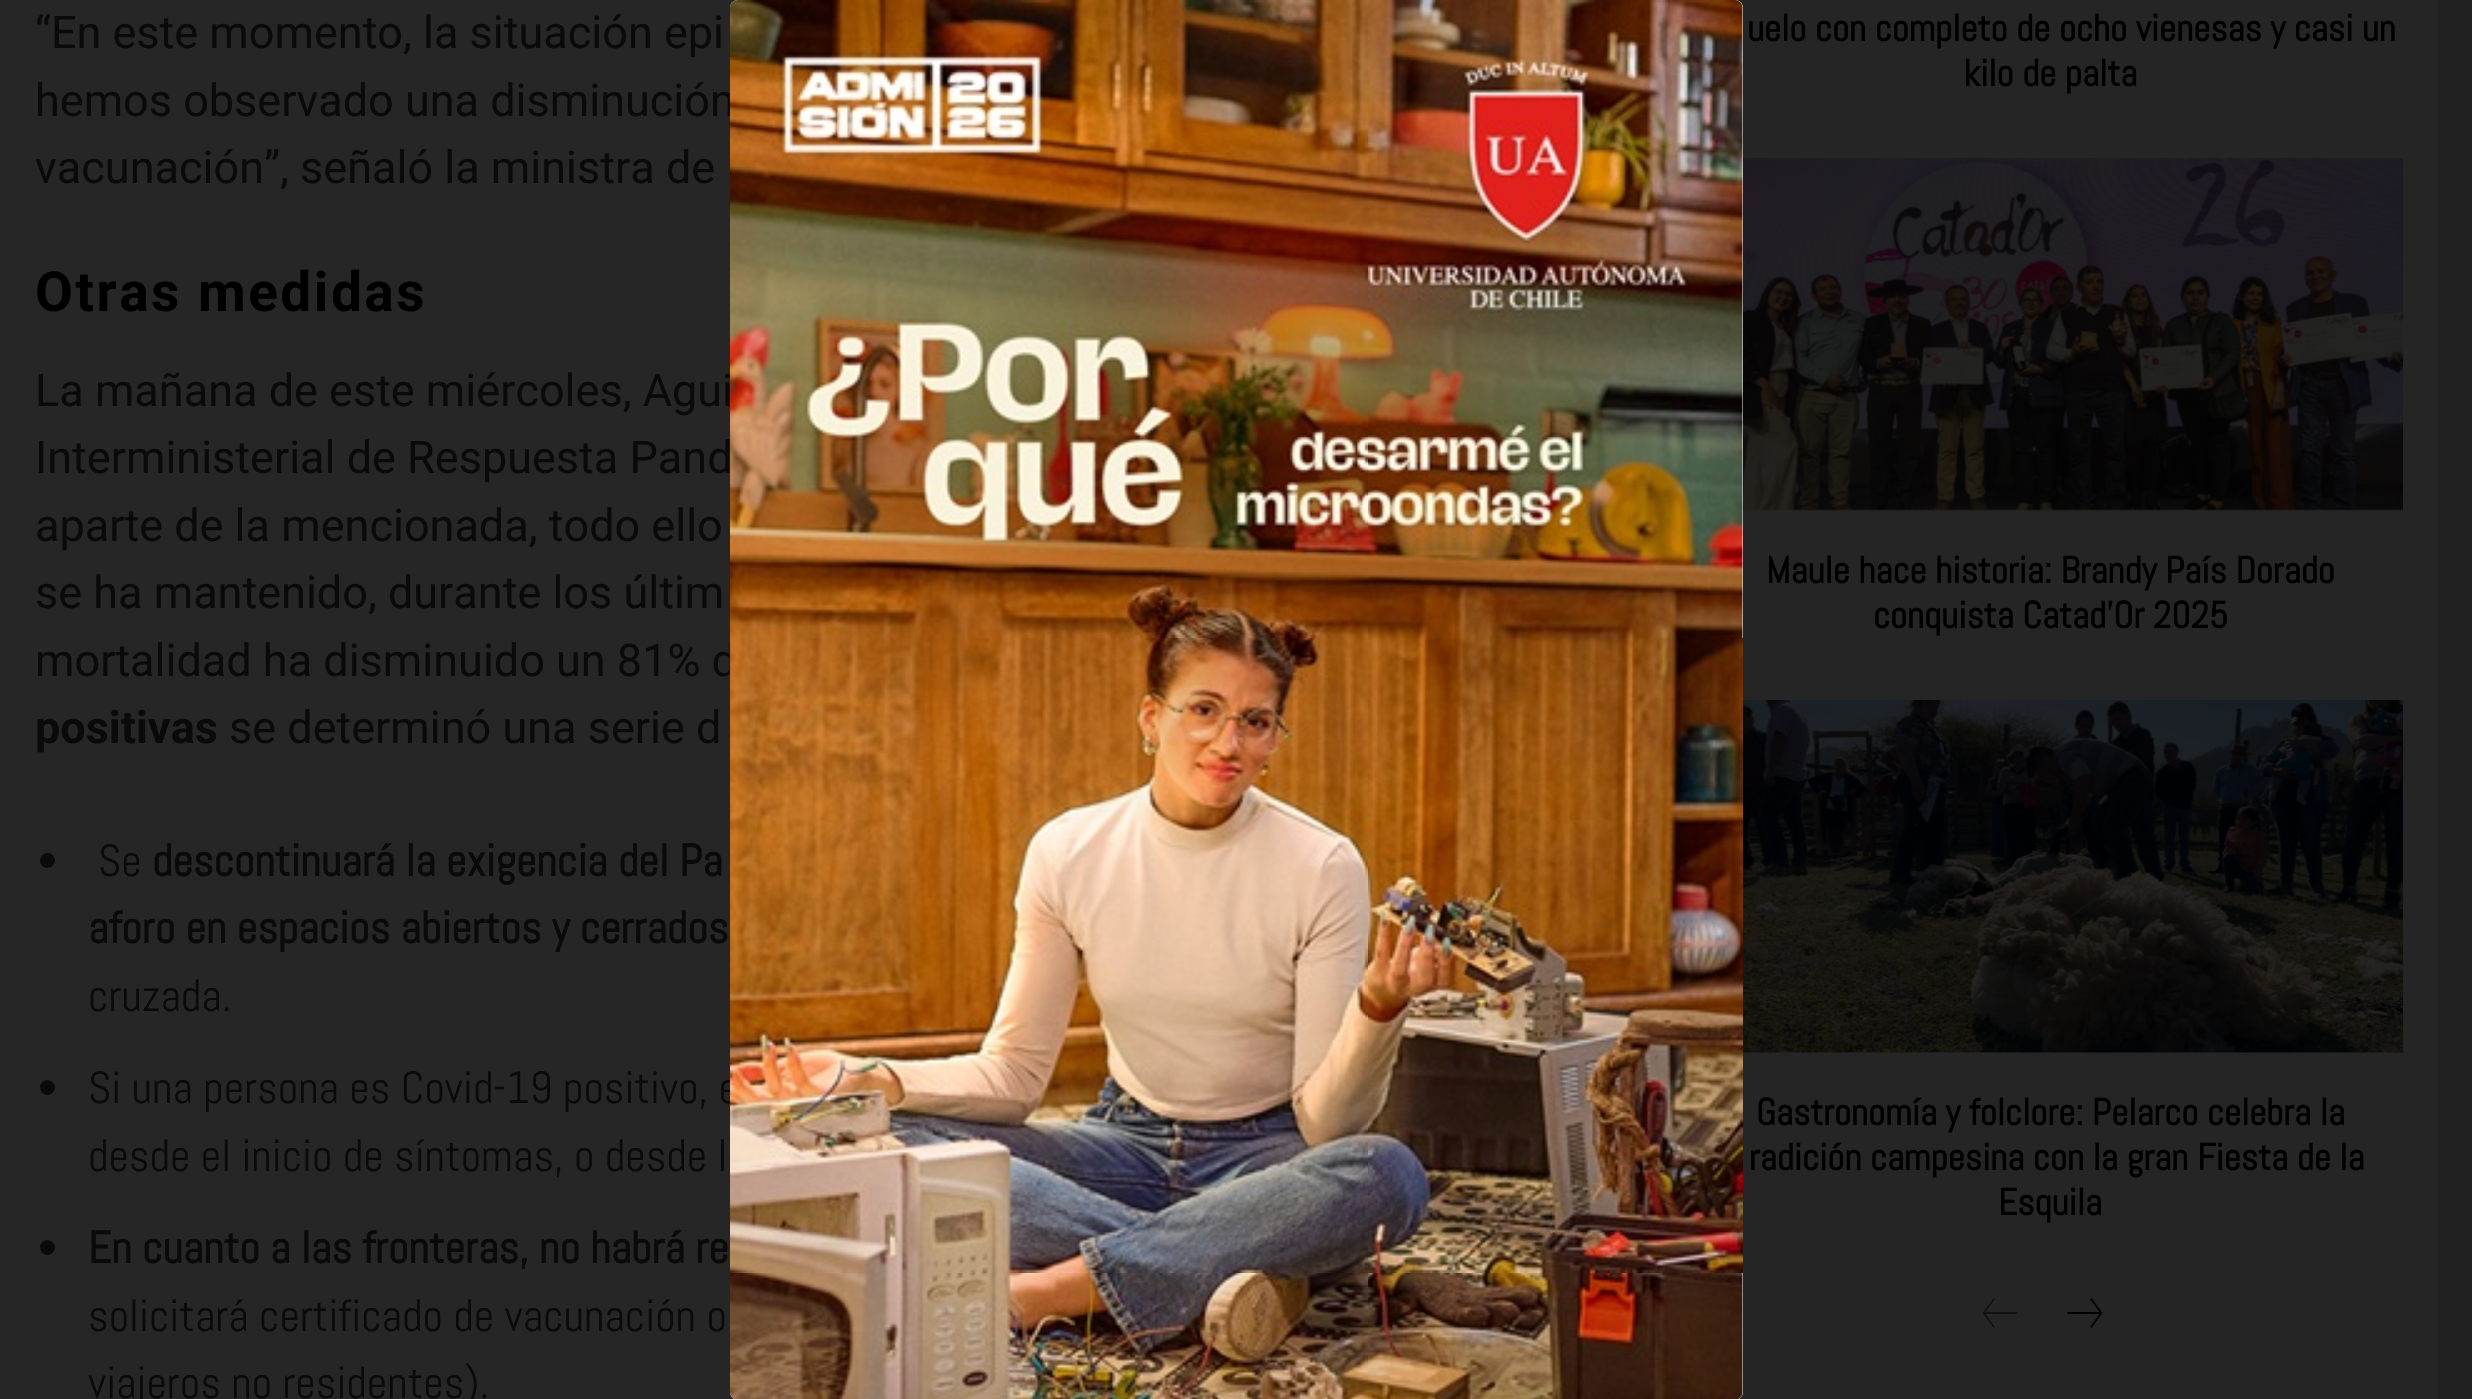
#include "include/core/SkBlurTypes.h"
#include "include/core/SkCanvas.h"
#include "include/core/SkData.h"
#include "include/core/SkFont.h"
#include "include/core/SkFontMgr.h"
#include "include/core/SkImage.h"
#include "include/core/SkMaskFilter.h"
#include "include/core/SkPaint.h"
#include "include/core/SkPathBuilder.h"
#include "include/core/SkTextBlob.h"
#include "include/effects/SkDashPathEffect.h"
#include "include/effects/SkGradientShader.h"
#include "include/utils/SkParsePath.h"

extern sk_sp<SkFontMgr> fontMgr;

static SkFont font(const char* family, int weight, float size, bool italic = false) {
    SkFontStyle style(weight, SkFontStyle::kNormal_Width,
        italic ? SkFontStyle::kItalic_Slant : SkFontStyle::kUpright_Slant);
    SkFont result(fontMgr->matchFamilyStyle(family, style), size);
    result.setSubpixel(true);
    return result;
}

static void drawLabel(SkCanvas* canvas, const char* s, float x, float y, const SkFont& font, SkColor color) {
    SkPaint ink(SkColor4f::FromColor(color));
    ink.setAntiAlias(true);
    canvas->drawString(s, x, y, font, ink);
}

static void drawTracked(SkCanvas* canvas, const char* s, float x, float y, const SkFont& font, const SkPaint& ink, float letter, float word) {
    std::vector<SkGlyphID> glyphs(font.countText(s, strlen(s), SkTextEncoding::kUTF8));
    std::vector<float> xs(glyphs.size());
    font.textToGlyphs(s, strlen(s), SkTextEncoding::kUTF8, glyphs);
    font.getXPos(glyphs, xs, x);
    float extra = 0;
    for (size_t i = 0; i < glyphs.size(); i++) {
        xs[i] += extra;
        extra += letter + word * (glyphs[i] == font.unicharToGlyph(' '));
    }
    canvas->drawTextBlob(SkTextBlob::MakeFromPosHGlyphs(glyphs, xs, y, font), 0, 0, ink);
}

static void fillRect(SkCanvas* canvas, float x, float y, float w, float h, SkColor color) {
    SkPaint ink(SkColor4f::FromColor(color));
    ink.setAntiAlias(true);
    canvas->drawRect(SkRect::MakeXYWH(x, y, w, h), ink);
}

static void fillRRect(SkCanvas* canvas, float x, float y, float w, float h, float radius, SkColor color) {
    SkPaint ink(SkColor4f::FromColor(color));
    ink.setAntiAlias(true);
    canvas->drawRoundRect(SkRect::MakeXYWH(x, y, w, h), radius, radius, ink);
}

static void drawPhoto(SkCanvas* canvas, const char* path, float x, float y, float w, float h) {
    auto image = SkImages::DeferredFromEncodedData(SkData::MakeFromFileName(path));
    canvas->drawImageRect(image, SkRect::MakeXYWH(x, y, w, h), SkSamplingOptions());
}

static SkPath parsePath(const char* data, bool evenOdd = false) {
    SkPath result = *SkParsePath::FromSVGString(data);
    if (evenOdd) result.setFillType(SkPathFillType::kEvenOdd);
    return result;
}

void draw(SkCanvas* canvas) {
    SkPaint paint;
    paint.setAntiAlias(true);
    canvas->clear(0xFF212121);
    fillRect(canvas, 0, 0, 737, 1399, 0xFF262626);
    SkFont font1 = font("Roboto", 400, 45);
    drawLabel(canvas, "hemos observado una disminución", 35, 116, font1, 0xFF0A0A0A);
    drawLabel(canvas, "mortalidad ha disminuido un 81% d", 35, 676, font1, 0xFF0A0A0A);
    SkFont font2 = font("Abel", 400, 45);
    drawLabel(canvas, "Si una persona es Covid-19 positivo, e", 88, 1103, font2, 0xFF0A0A0A);
    fillRect(canvas, 1735, 0, 703, 1399, 0xFF252525);
    fillRRect(canvas, 730, 0, 1013, 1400, 8, 0xFFFFFFFF);
    drawPhoto(canvas, "assets/img1.png", 730, 0, 1013, 1399);
    drawLabel(canvas, "“En este momento, la situación epi", 35, 48, font1, 0xFF0A0A0A);
    drawLabel(canvas, "vacunación”, señaló la ministra de", 35, 183, font1, 0xFF0A0A0A);
    SkFont font3 = font("Roboto", 700, 55);
    paint.setColor(0xFF000000);
    drawTracked(canvas, "Otras medidas", 35, 311, font3, paint, 2.5f, 0);
    drawLabel(canvas, "La mañana de este miércoles, Agui", 35, 406, font1, 0xFF0A0A0A);
    drawLabel(canvas, "Interministerial de Respuesta Pand", 35, 473, font1, 0xFF0A0A0A);
    drawLabel(canvas, "aparte de la mencionada, todo ello", 35, 541, font1, 0xFF0A0A0A);
    drawLabel(canvas, "se ha mantenido, durante los últim", 35, 608, font1, 0xFF0A0A0A);
    SkFont font4 = font("Roboto", 700, 45);
    drawLabel(canvas, "positivas", 35, 743, font4, 0xFF0A0A0A);
    drawLabel(canvas, "se determinó una serie d", 229, 743, font1, 0xFF0A0A0A);
    paint.setColor(0xFF0A0A0A);
    canvas->drawCircle(47.5f, 860.5f, 7.5f, paint);
    drawLabel(canvas, "Se", 98, 876, font2, 0xFF0A0A0A);
    SkFont font5 = font("Abel", 700, 45);
    drawLabel(canvas, "descontinuará la exigencia del Pa", 152, 876, font5, 0xFF0A0A0A);
    drawLabel(canvas, "aforo en espacios abiertos y cerrados", 88, 943, font5, 0xFF0A0A0A);
    drawLabel(canvas, "cruzada.", 88, 1011, font2, 0xFF0A0A0A);
    canvas->drawCircle(47.5f, 1087.5f, 7.5f, paint);
    drawLabel(canvas, "desde el inicio de síntomas, o desde l", 88, 1171, font2, 0xFF0A0A0A);
    canvas->drawCircle(47.5f, 1247.5f, 7.5f, paint);
    drawLabel(canvas, "En cuanto a las fronteras, no habrá re", 88, 1263, font5, 0xFF0A0A0A);
    drawLabel(canvas, "solicitará certificado de vacunación o", 88, 1331, font2, 0xFF0A0A0A);
    drawLabel(canvas, "viajeros no residentes).", 88, 1398, font2, 0xFF0A0A0A);
    SkFont font6 = font("Abel", 700, 37.5f);
    drawLabel(canvas, "uelo con completo de ocho vienesas y casi un", 1747, 41, font6, 0xFF000000);
    drawLabel(canvas, "kilo de palta", 1963, 86, font6, 0xFF000000);
    drawPhoto(canvas, "assets/img2.png", 1743, 158, 660, 353);
    drawLabel(canvas, "Maule hace historia: Brandy País Dorado", 1766, 583, font6, 0xFF000000);
    drawLabel(canvas, "conquista Catad’Or 2025", 1873, 628, font6, 0xFF000000);
    drawPhoto(canvas, "assets/img3.png", 1743, 700, 660, 353);
    drawLabel(canvas, "Gastronomía y folclore: Pelarco celebra la", 1756, 1125, font6, 0xFF000000);
    drawLabel(canvas, "radición campesina con la gran Fiesta de la", 1749, 1170, font6, 0xFF000000);
    drawLabel(canvas, "Esquila", 1998, 1215, font6, 0xFF000000);
    paint.setColor(0xFF121213);
    canvas->drawPath(parsePath("M1995 1327L1985.5 1314H2017.5V1312H1985.5L1995 1299L1993.5 1298L1982.5 1313L1993.5 1328Z"), paint);
    paint.setColor(0xFF000000);
    canvas->drawPath(parsePath("M2090 1327L2091.5 1328L2102.5 1313L2091.5 1298L2090 1299L2099.5 1312H2067.5V1314H2099.5Z"), paint);
}
